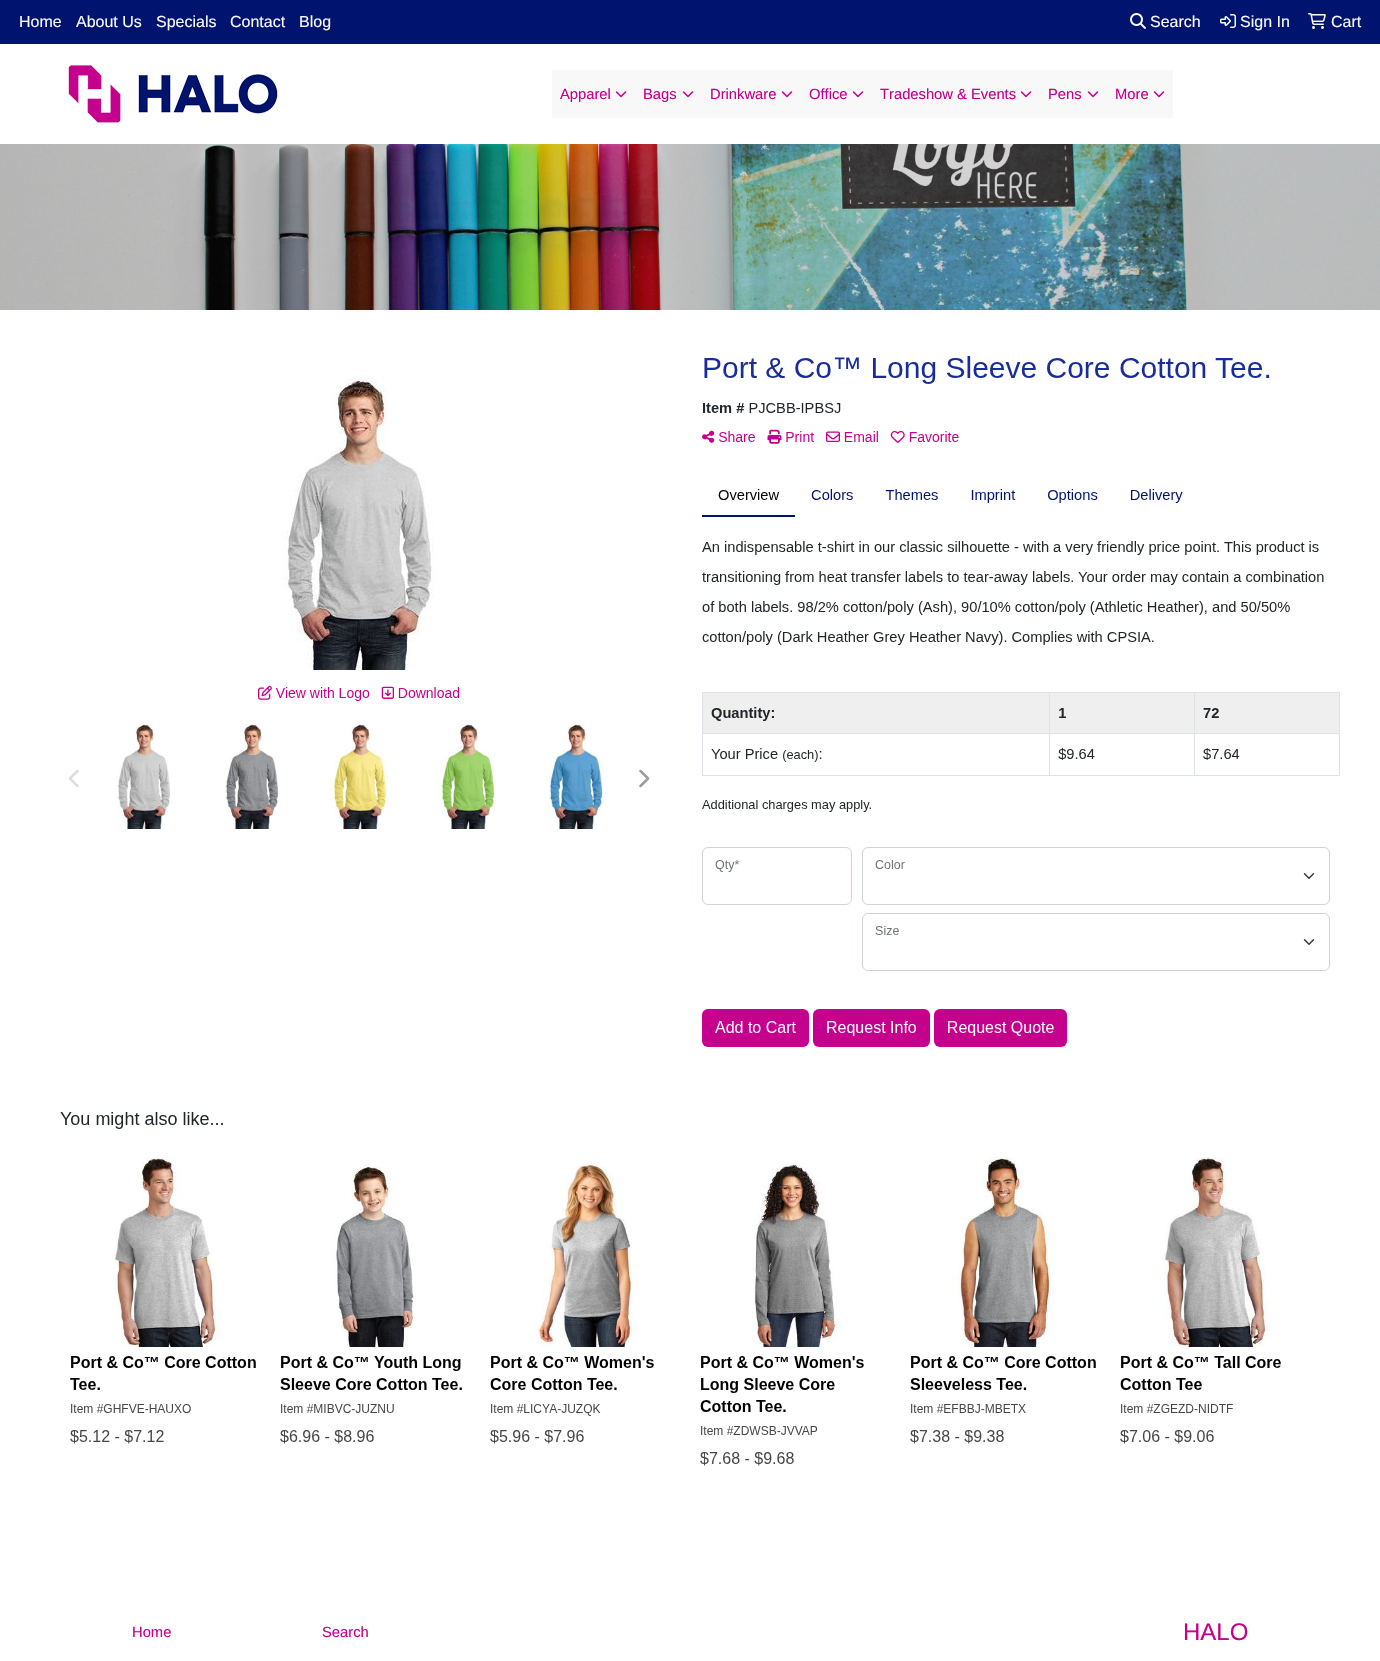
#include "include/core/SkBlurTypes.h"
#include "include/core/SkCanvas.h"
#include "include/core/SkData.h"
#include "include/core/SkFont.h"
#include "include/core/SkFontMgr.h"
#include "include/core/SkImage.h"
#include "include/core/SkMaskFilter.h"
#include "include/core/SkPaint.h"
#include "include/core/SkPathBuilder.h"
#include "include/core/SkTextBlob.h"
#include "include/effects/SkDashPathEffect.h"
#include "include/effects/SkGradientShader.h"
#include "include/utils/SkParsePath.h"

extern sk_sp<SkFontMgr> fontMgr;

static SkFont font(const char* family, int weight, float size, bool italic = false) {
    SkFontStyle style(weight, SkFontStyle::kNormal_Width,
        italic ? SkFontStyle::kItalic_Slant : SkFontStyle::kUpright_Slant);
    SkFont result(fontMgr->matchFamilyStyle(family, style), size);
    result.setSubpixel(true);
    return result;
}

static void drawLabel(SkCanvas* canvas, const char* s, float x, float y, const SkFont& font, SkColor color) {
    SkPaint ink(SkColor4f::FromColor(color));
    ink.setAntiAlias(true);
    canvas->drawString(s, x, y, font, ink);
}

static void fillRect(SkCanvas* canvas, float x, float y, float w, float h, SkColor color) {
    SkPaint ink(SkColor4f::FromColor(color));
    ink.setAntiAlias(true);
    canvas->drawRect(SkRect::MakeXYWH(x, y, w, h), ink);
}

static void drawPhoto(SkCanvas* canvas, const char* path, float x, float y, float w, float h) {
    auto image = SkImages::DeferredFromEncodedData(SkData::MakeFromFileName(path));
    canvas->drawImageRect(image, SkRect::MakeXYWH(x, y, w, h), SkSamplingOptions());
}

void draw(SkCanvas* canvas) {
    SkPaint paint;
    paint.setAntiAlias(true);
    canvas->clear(0xFFFFFFFF);
    fillRect(canvas, 0, 0, 1380, 44, 0xFF00136F);
    SkFont font1 = font("Liberation Sans", 400, 16);
    drawLabel(canvas, "Home", 19, 27, font1, 0xFFF8F8F8);
    drawLabel(canvas, "About Us", 76, 27, font1, 0xFFF8F8F8);
    drawLabel(canvas, "Specials", 156, 27, font1, 0xFFF8F8F8);
    drawLabel(canvas, "Contact", 230, 27, font1, 0xFFF8F8F8);
    drawLabel(canvas, "Blog", 299, 27, font1, 0xFFF8F8F8);
    drawPhoto(canvas, "assets/img1.png", 1130, 13, 16, 16);
    drawLabel(canvas, "Search", 1150, 27, font1, 0xFFF8F8F8);
    drawPhoto(canvas, "assets/img2.png", 1220, 14, 16, 14);
    drawLabel(canvas, "Sign In", 1240, 27, font1, 0xFFF8F8F8);
    drawPhoto(canvas, "assets/img3.png", 1308, 13, 18, 16);
    drawLabel(canvas, "Cart", 1331, 27, font1, 0xFFF8F8F8);
    drawPhoto(canvas, "assets/img4.png", 68, 65, 210, 58);
    fillRect(canvas, 552, 70, 621, 48, 0xFFF8F8F8);
    SkFont font2 = font("Liberation Sans", 400, 14.75f);
    drawLabel(canvas, "Apparel", 560, 99, font2, 0xFFC5008D);
    drawPhoto(canvas, "assets/img5.png", 615, 91, 12, 7);
    drawLabel(canvas, "Bags", 643, 99, font2, 0xFFC5008D);
    drawPhoto(canvas, "assets/img5.png", 682, 91, 12, 7);
    drawLabel(canvas, "Drinkware", 710, 99, font2, 0xFFC5008D);
    drawPhoto(canvas, "assets/img5.png", 781, 91, 12, 7);
    drawLabel(canvas, "Office", 809, 99, font2, 0xFFC5008D);
    drawPhoto(canvas, "assets/img5.png", 852, 91, 12, 7);
    drawLabel(canvas, "Tradeshow & Events", 880, 99, font2, 0xFFC5008D);
    drawPhoto(canvas, "assets/img5.png", 1020, 91, 12, 7);
    drawLabel(canvas, "Pens", 1048, 99, font2, 0xFFC5008D);
    drawPhoto(canvas, "assets/img5.png", 1087, 91, 12, 7);
    drawLabel(canvas, "More", 1115, 99, font2, 0xFFC5008D);
    drawPhoto(canvas, "assets/img5.png", 1153, 91, 12, 7);
    drawPhoto(canvas, "assets/img6.png", 0, 144, 1380, 166);
    drawPhoto(canvas, "assets/img7.png", 60, 356, 1280, 1110);
    drawLabel(canvas, "Home", 132, 1637, font2, 0xFFC5008D);
    drawLabel(canvas, "Search", 322, 1637, font2, 0xFFC5008D);
    SkFont font3 = font("Liberation Sans", 400, 24);
    drawLabel(canvas, "HALO", 1183, 1640, font3, 0xFFC5008D);
}
